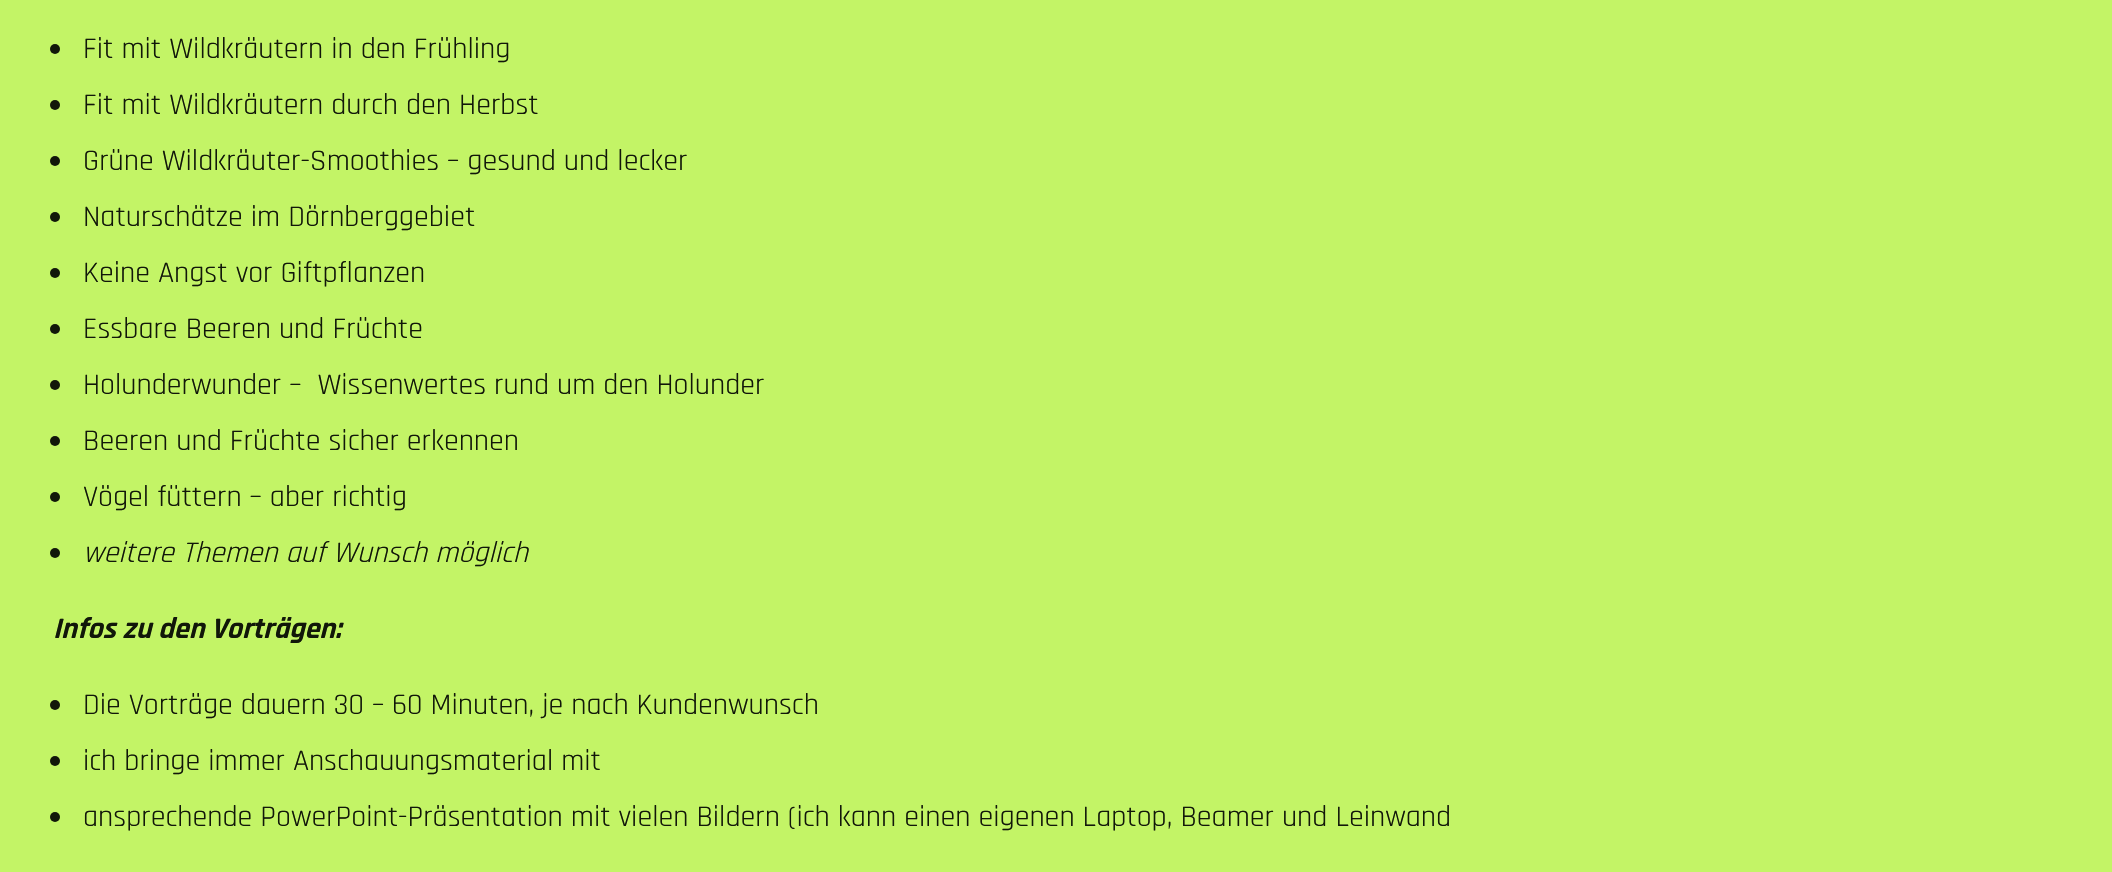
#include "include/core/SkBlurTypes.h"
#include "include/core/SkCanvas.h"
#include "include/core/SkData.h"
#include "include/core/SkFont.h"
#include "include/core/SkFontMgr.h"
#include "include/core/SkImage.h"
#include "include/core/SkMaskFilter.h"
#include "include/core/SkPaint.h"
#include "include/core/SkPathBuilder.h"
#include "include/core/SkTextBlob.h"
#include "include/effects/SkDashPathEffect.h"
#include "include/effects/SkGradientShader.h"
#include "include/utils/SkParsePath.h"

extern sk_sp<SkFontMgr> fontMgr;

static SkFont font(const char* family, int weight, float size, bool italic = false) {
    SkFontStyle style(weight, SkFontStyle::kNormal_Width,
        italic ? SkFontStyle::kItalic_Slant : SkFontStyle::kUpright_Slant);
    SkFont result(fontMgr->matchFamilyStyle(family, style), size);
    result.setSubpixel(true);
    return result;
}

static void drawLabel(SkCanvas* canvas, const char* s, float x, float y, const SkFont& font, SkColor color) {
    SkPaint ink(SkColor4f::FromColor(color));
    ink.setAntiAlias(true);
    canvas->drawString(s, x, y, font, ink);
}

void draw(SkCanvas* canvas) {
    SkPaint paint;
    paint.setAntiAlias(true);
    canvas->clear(0xFFC3F466);
    paint.setColor(0xFF111709);
    canvas->drawCircle(55, 49, 5, paint);
    SkFont font1 = font("Rajdhani", 400, 30);
    drawLabel(canvas, "Fit mit Wildkräutern in den Frühling", 83, 58, font1, 0xFF111709);
    canvas->drawCircle(55, 105, 5, paint);
    drawLabel(canvas, "Fit mit Wildkräutern durch den Herbst", 83, 114, font1, 0xFF111709);
    canvas->drawCircle(55, 161, 5, paint);
    drawLabel(canvas, "Grüne Wildkräuter-Smoothies – gesund und lecker", 83, 170, font1, 0xFF111709);
    canvas->drawCircle(55, 217, 5, paint);
    drawLabel(canvas, "Naturschätze im Dörnberggebiet", 83, 226, font1, 0xFF111709);
    canvas->drawCircle(55, 273, 5, paint);
    drawLabel(canvas, "Keine Angst vor Giftpflanzen", 83, 282, font1, 0xFF111709);
    canvas->drawCircle(55, 329, 5, paint);
    drawLabel(canvas, "Essbare Beeren und Früchte", 83, 338, font1, 0xFF111709);
    canvas->drawCircle(55, 385, 5, paint);
    drawLabel(canvas, "Holunderwunder –  Wissenwertes rund um den Holunder", 83, 394, font1, 0xFF111709);
    canvas->drawCircle(55, 441, 5, paint);
    drawLabel(canvas, "Beeren und Früchte sicher erkennen", 83, 450, font1, 0xFF111709);
    canvas->drawCircle(55, 497, 5, paint);
    drawLabel(canvas, "Vögel füttern – aber richtig", 83, 506, font1, 0xFF111709);
    canvas->drawCircle(55, 553, 5, paint);
    SkFont font2 = font("Rajdhani", 400, 30, true);
    drawLabel(canvas, "weitere Themen auf Wunsch möglich", 83, 562, font2, 0xFF111709);
    SkFont font3 = font("Rajdhani", 700, 30, true);
    drawLabel(canvas, "Infos zu den Vorträgen:", 53, 638, font3, 0xFF111709);
    canvas->drawCircle(55, 705, 5, paint);
    drawLabel(canvas, "Die Vorträge dauern 30 – 60 Minuten, je nach Kundenwunsch", 83, 714, font1, 0xFF111709);
    canvas->drawCircle(55, 761, 5, paint);
    drawLabel(canvas, "ich bringe immer Anschauungsmaterial mit", 83, 770, font1, 0xFF111709);
    canvas->drawCircle(55, 817, 5, paint);
    drawLabel(canvas, "ansprechende PowerPoint-Präsentation mit vielen Bildern (ich kann einen eigenen Laptop, Beamer und Leinwand", 83, 826, font1, 0xFF111709);
}
